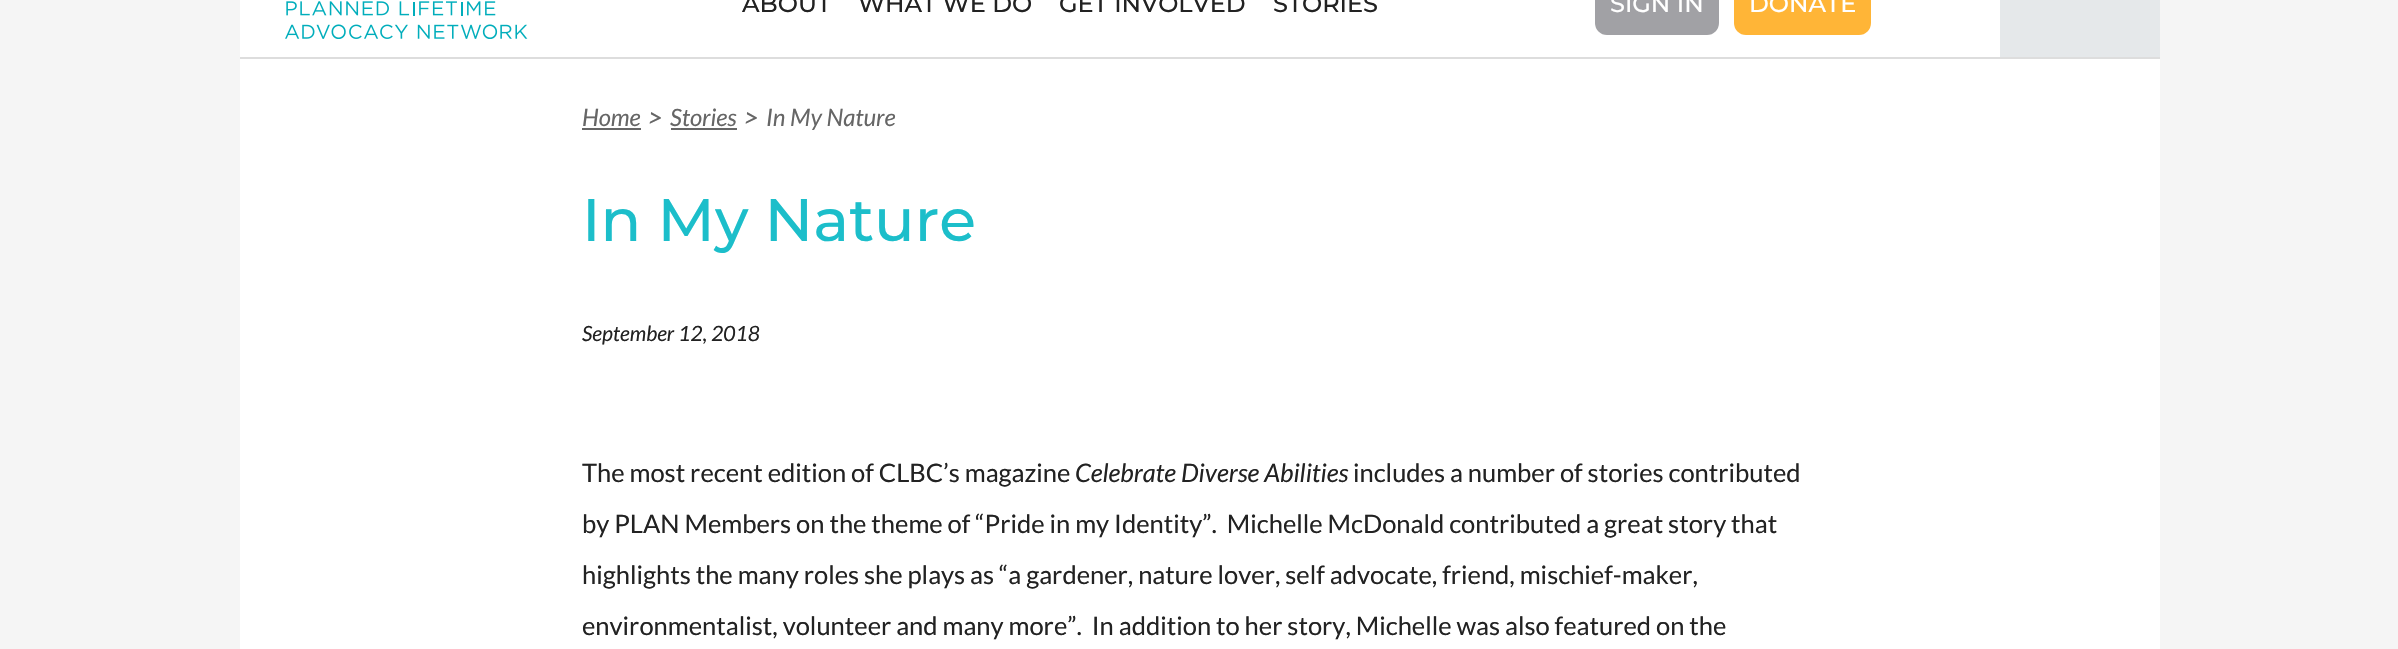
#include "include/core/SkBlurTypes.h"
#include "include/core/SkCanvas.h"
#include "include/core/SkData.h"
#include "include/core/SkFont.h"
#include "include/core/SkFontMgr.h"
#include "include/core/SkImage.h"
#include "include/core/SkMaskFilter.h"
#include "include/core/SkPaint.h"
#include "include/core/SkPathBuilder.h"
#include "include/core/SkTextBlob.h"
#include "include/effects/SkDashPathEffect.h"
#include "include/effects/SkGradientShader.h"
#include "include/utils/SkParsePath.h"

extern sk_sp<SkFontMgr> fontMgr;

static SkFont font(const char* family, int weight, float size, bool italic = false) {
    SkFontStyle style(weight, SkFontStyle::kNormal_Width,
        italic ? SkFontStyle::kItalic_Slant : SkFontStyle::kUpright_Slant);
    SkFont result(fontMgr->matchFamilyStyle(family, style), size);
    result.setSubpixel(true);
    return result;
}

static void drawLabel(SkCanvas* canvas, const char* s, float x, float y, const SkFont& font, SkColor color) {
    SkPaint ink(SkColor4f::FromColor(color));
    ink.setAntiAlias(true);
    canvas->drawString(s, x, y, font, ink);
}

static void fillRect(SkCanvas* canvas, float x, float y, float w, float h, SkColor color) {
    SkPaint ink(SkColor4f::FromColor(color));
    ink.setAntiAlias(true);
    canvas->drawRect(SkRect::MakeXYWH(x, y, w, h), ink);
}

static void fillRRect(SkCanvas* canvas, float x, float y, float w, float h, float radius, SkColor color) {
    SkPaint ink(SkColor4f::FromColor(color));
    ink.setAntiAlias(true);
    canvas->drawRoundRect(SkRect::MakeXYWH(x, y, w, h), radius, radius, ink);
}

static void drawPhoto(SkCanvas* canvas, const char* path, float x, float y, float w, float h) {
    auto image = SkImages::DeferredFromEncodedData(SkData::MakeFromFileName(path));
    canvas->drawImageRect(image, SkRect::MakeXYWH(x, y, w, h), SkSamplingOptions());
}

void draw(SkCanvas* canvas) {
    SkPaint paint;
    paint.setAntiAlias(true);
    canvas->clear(0xFFF5F5F5);
    fillRect(canvas, 240, 0, 1920, 649, 0xFFFFFFFF);
    fillRect(canvas, 240, 57, 1920, 2, 0xFFDDDDDD);
    drawPhoto(canvas, "assets/img1.png", 285, 1, 243, 38);
    SkFont font1 = font("Montserrat", 500, 24);
    drawLabel(canvas, "ABOUT", 742, 12, font1, 0xFF222222);
    drawLabel(canvas, "WHAT WE DO", 858, 12, font1, 0xFF222222);
    drawLabel(canvas, "GET INVOLVED", 1059, 12, font1, 0xFF222222);
    drawLabel(canvas, "STORIES", 1273, 12, font1, 0xFF222222);
    fillRRect(canvas, 1595, -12, 124, 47, 12, 0xFFA1A1A5);
    drawLabel(canvas, "SIGN IN", 1610, 12, font1, 0xFFFFFFFF);
    fillRRect(canvas, 1734, -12, 137, 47, 12, 0xFFFFB537);
    drawLabel(canvas, "DONATE", 1749, 12, font1, 0xFFFFFFFF);
    fillRect(canvas, 2000, 0, 160, 57, 0xFFE5E8EA);
    SkFont font2 = font("Lato", 400, 24, true);
    drawLabel(canvas, "Home", 582, 126, font2, 0xFF666666);
    fillRect(canvas, 582, 128, 59, 2, 0xFF666666);
    SkFont font3 = font("Lato", 400, 27, true);
    drawLabel(canvas, ">", 648, 127, font3, 0xFF666666);
    drawLabel(canvas, "Stories", 670, 126, font2, 0xFF666666);
    fillRect(canvas, 671, 128, 66, 2, 0xFF666666);
    drawLabel(canvas, ">", 744, 127, font3, 0xFF666666);
    drawLabel(canvas, "In My Nature", 766, 126, font2, 0xFF666666);
    SkFont font4 = font("Montserrat", 500, 60);
    drawLabel(canvas, "In My Nature", 582, 241, font4, 0xFF1CBECA);
    SkFont font5 = font("Lato", 400, 21, true);
    drawLabel(canvas, "September 12, 2018", 582, 341, font5, 0xFF222222);
    SkFont font6 = font("Lato", 400, 25.5f);
    drawLabel(canvas, "The most recent edition of CLBC’s magazine", 582, 482, font6, 0xFF222222);
    SkFont font7 = font("Lato", 400, 25.5f, true);
    drawLabel(canvas, "Celebrate Diverse Abilities", 1075, 482, font7, 0xFF222222);
    drawLabel(canvas, "includes a number of stories contributed", 1353, 482, font6, 0xFF222222);
    drawLabel(canvas, "by PLAN Members on the theme of “Pride in my Identity”.  Michelle McDonald contributed a great story that", 582, 533, font6, 0xFF222222);
    drawLabel(canvas, "highlights the many roles she plays as “a gardener, nature lover, self advocate, friend, mischief-maker,", 582, 584, font6, 0xFF222222);
    drawLabel(canvas, "environmentalist, volunteer and many more”.  In addition to her story, Michelle was also featured on the", 582, 635, font6, 0xFF222222);
}
